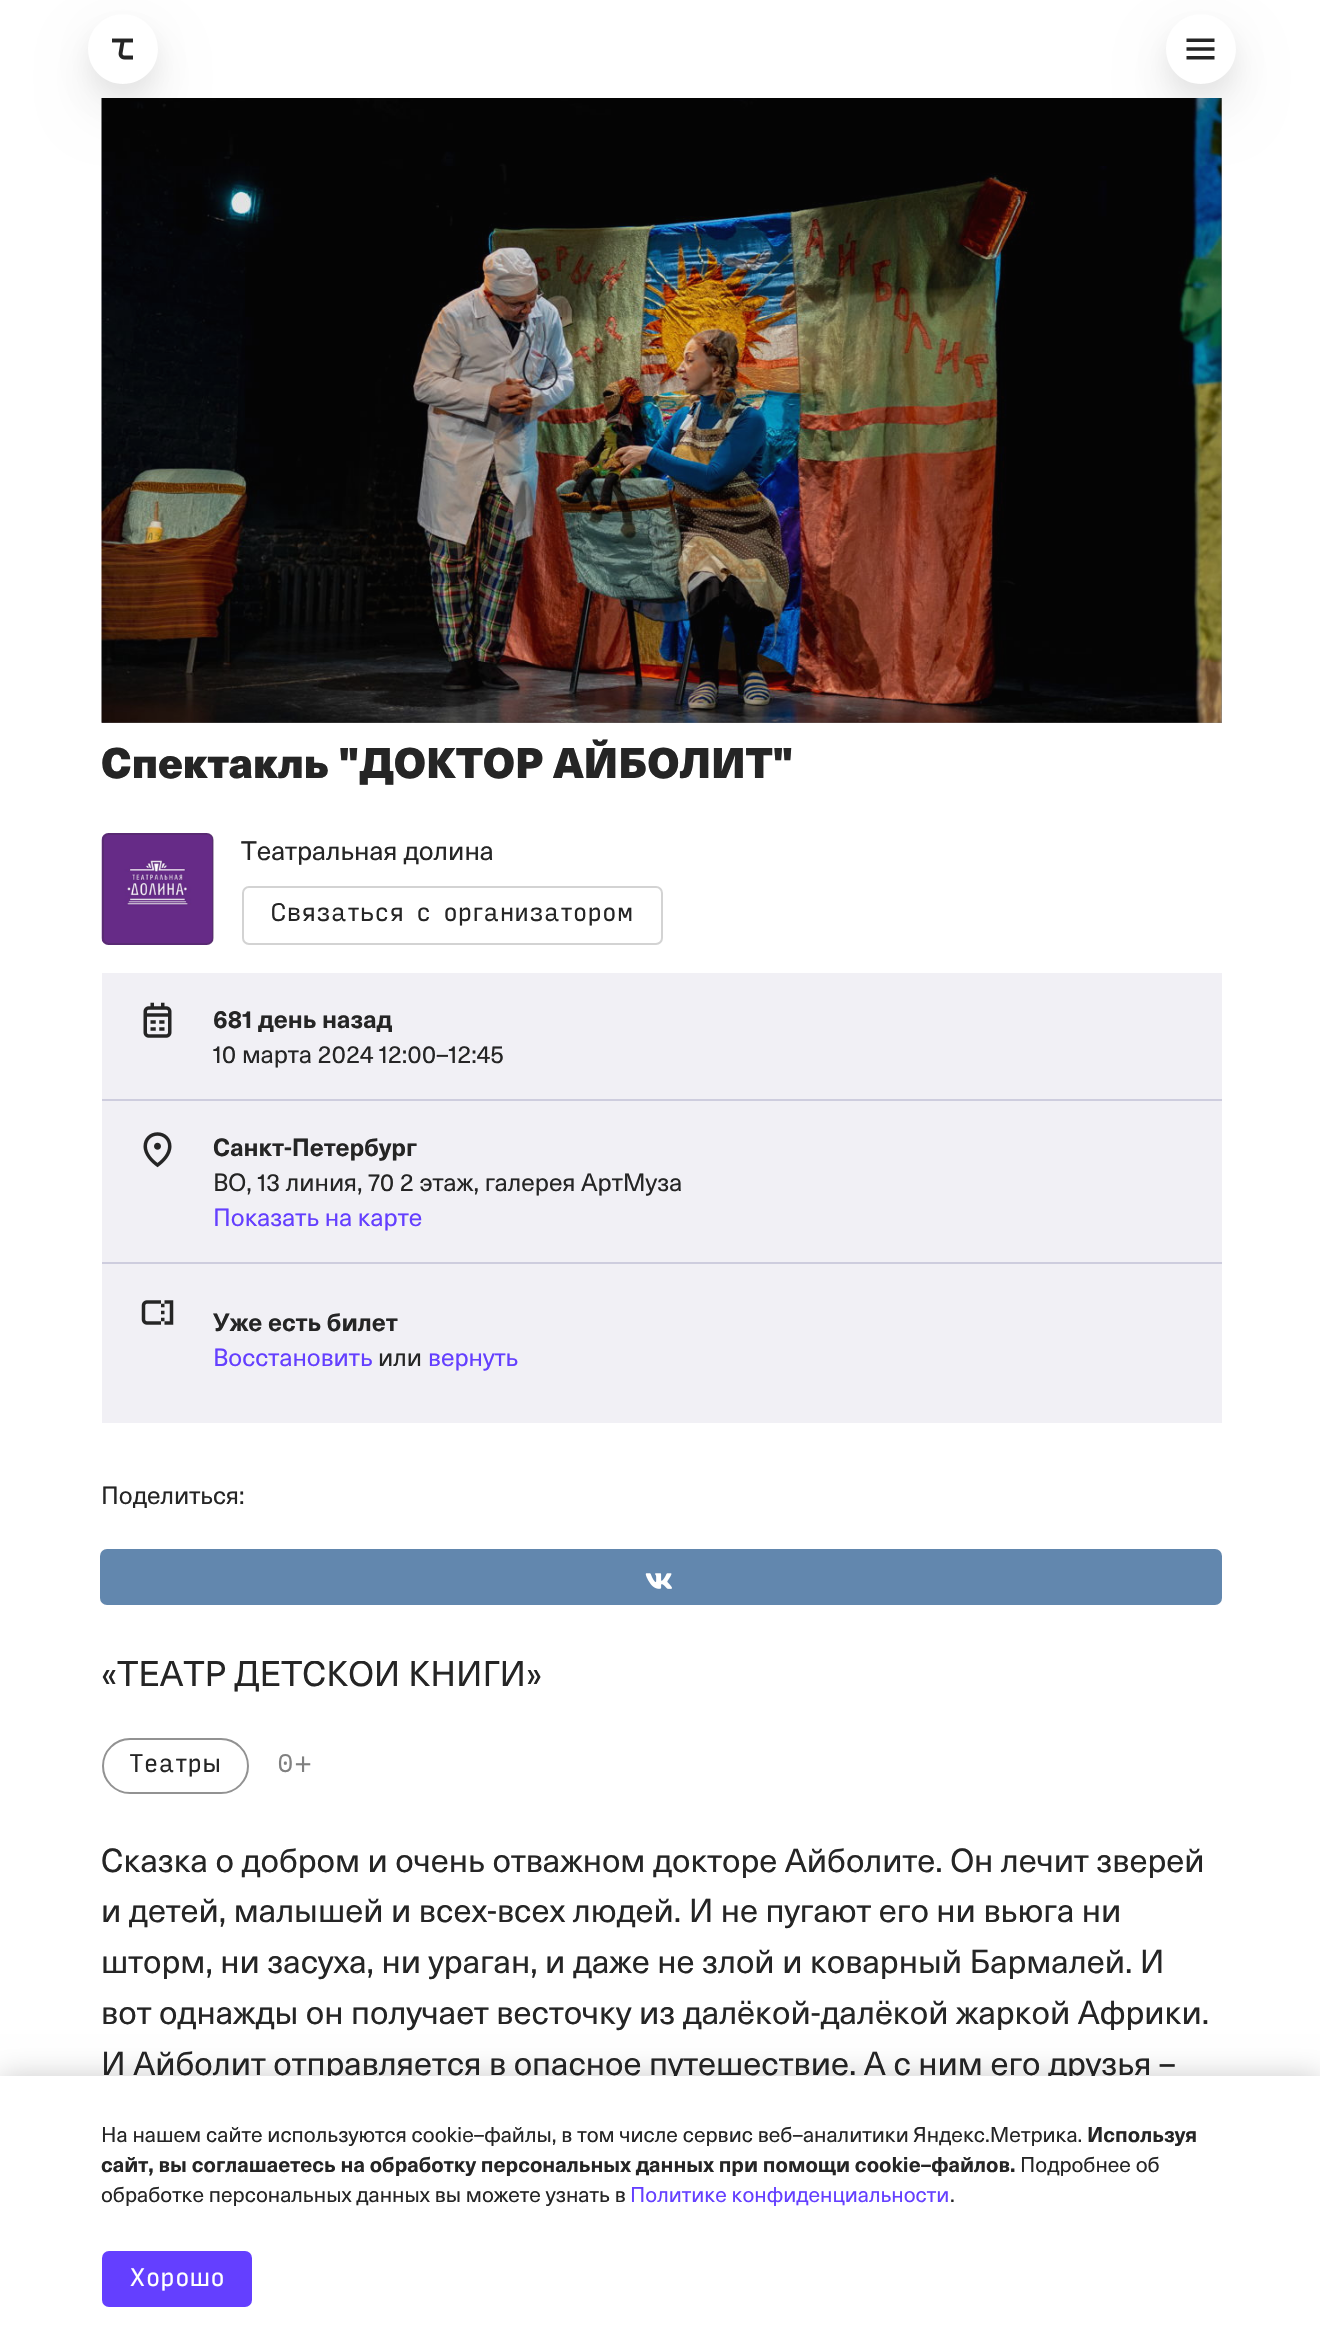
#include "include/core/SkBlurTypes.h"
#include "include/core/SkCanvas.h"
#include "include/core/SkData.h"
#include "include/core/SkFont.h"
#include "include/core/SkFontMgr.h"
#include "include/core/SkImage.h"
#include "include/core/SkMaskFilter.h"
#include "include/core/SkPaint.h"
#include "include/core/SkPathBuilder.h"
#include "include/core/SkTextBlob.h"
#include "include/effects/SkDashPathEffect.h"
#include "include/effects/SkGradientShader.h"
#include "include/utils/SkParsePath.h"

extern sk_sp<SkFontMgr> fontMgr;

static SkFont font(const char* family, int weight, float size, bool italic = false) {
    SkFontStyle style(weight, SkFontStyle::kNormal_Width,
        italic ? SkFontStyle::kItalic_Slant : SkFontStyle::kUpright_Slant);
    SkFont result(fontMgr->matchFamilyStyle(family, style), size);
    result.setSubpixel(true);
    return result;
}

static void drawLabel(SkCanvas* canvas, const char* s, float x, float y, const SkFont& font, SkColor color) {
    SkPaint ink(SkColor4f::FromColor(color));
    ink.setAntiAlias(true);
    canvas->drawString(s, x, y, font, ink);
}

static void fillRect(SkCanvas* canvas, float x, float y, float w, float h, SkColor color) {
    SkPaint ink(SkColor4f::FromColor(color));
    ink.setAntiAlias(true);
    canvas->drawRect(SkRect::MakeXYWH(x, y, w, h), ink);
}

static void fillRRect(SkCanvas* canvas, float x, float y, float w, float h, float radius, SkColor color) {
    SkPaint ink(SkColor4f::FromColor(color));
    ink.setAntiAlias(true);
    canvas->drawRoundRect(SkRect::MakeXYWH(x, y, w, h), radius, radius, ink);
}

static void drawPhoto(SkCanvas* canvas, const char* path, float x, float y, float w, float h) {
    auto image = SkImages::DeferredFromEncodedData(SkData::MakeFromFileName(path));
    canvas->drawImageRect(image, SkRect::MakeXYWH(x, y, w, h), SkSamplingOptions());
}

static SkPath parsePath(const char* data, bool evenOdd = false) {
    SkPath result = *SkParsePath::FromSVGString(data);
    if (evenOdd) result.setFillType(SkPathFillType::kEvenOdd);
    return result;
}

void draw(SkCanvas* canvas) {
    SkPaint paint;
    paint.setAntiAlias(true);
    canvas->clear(0xFFFFFFFF);
    canvas->save();
    canvas->clipPath(parsePath("M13 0H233V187H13ZM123 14C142.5 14 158 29.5 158 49C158 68.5 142.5 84 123 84C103.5 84 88 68.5 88 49C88 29.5 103.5 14 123 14Z", true), true);
    paint.setColor(0x12000000);
    paint.setMaskFilter(SkMaskFilter::MakeBlur(kNormal_SkBlurStyle, 24.5f));
    canvas->drawRoundRect(SkRect::MakeXYWH(88, 42, 70, 70), 35, 35, paint);
    paint.setMaskFilter(nullptr);
    canvas->restore();
    canvas->save();
    canvas->clipPath(parsePath("M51 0H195V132H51ZM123 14C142.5 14 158 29.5 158 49C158 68.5 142.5 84 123 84C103.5 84 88 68.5 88 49C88 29.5 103.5 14 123 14Z", true), true);
    paint.setColor(0x0F000000);
    paint.setMaskFilter(SkMaskFilter::MakeBlur(kNormal_SkBlurStyle, 12));
    canvas->drawRoundRect(SkRect::MakeXYWH(88, 25, 70, 70), 35, 35, paint);
    paint.setMaskFilter(nullptr);
    canvas->restore();
    drawPhoto(canvas, "assets/img1.png", 112, 38, 21, 22);
    canvas->save();
    canvas->clipPath(parsePath("M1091 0H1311V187H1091ZM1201 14C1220.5 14 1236 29.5 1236 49C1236 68.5 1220.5 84 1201 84C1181.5 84 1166 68.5 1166 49C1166 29.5 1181.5 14 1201 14Z", true), true);
    paint.setColor(0x12000000);
    paint.setMaskFilter(SkMaskFilter::MakeBlur(kNormal_SkBlurStyle, 24.5f));
    canvas->drawRoundRect(SkRect::MakeXYWH(1166, 42, 70, 70), 35, 35, paint);
    paint.setMaskFilter(nullptr);
    canvas->restore();
    canvas->save();
    canvas->clipPath(parsePath("M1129 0H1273V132H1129ZM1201 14C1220.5 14 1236 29.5 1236 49C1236 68.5 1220.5 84 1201 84C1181.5 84 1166 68.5 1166 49C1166 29.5 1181.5 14 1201 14Z", true), true);
    paint.setColor(0x0F000000);
    paint.setMaskFilter(SkMaskFilter::MakeBlur(kNormal_SkBlurStyle, 12));
    canvas->drawRoundRect(SkRect::MakeXYWH(1166, 25, 70, 70), 35, 35, paint);
    paint.setMaskFilter(nullptr);
    canvas->restore();
    drawPhoto(canvas, "assets/img2.png", 1186, 38, 29, 22);
    fillRect(canvas, 102, 98, 1120, 625, 0xFF929292);
    drawPhoto(canvas, "assets/img3.png", 101, 98, 1121, 625);
    fillRect(canvas, 102, 98, 1120, 625, 0x1A252525);
    SkFont font1 = font("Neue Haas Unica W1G", 900, 42);
    drawLabel(canvas, "Спектакль \"ДОКТОР АЙБОЛИТ\"", 101, 778, font1, 0xFF252525);
    drawPhoto(canvas, "assets/img4.png", 101, 833, 113, 112);
    paint.setStroke(true);
    paint.setStrokeWidth(2);
    paint.setColor(0x33252525);
    canvas->drawRoundRect(SkRect::MakeXYWH(103, 834, 110, 110), 6, 6, paint);
    SkFont font2 = font("Neue Haas Unica W1G", 400, 26.25f);
    drawLabel(canvas, "Театральная долина", 241, 860, font2, 0xFF252525);
    paint.setColor(0xFFD3D3D3);
    canvas->drawRoundRect(SkRect::MakeXYWH(243, 887, 419, 57), 6, 6, paint);
    SkFont font3 = font("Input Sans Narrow", 400, 24.5f);
    drawLabel(canvas, "Связаться с организатором", 270, 921, font3, 0xFF252525);
    fillRect(canvas, 102, 973, 1120, 126, 0xFFF1F0F5);
    drawPhoto(canvas, "assets/img5.png", 143, 1002, 29, 36);
    SkFont font4 = font("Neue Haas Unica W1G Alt", 700, 24.5f);
    drawLabel(canvas, "681 день назад", 213, 1028, font4, 0xFF252525);
    SkFont font5 = font("Neue Haas Unica W1G Alt", 400, 24.5f);
    drawLabel(canvas, "10 марта 2024 12:00–12:45", 213, 1063, font5, 0xFF252525);
    fillRect(canvas, 102, 1101, 1120, 161, 0xFFF1F0F5);
    fillRect(canvas, 102, 1099, 1120, 2, 0xFFCECDDE);
    drawPhoto(canvas, "assets/img6.png", 143, 1132, 29, 36);
    SkFont font6 = font("Neue Haas Unica W1G", 700, 24.5f);
    drawLabel(canvas, "Санкт-Петербург", 213, 1156, font6, 0xFF252525);
    drawLabel(canvas, "ВО, 13 линия, 70 2 этаж, галерея АртМуза", 213, 1191, font5, 0xFF252525);
    SkFont font7 = font("Neue Haas Unica W1G", 400, 24.5f);
    drawLabel(canvas, "Показать на карте", 213, 1226, font7, 0xFF643FFF);
    fillRect(canvas, 102, 1264, 1120, 159, 0xFFF1F0F5);
    fillRect(canvas, 102, 1262, 1120, 2, 0xFFCECDDE);
    drawPhoto(canvas, "assets/img7.png", 141, 1300, 33, 25);
    drawLabel(canvas, "Уже есть билет", 213, 1331, font6, 0xFF252525);
    drawLabel(canvas, "Восстановить", 213, 1366, font7, 0xFF643FFF);
    drawLabel(canvas, "или", 378, 1366, font7, 0xFF252525);
    drawLabel(canvas, "вернуть", 428, 1366, font7, 0xFF643FFF);
    drawLabel(canvas, "Поделиться:", 101, 1504, font7, 0xFF252525);
    fillRRect(canvas, 100, 1549, 1122, 56, 7, 0xFF6287AE);
    drawPhoto(canvas, "assets/img8.png", 645, 1573, 27, 16);
    canvas->save();
    canvas->clipRect(SkRect::MakeXYWH(102, 1661, 1120, 142));
    SkFont font8 = font("Neue Haas Unica W1G", 400, 35);
    drawLabel(canvas, "«ТЕАТР ДЕТСКОЙ КНИГИ»", 101, 1686, font8, 0xFF252525);
    canvas->restore();
    paint.setColor(0xFF929292);
    canvas->drawRoundRect(SkRect::MakeXYWH(103, 1739, 145, 54), 27, 27, paint);
    drawLabel(canvas, "Театры", 129, 1772, font3, 0xFF252525);
    drawLabel(canvas, "0+", 277, 1772, font3, 0xFF808080);
    SkFont font9 = font("Neue Haas Unica W1G", 400, 32.65f);
    drawLabel(canvas, "Сказка о добром и очень отважном докторе Айболите. Он лечит зверей", 101, 1872, font9, 0xFF252525);
    drawLabel(canvas, "и детей, малышей и всех-всех людей. И не пугают его ни вьюга ни", 101, 1922, font9, 0xFF252525);
    drawLabel(canvas, "шторм, ни засуха, ни ураган, и даже не злой и коварный Бармалей. И", 101, 1973, font9, 0xFF252525);
    drawLabel(canvas, "вот однажды он получает весточку из далёкой-далёкой жаркой Африки.", 101, 2024, font9, 0xFF252525);
    drawLabel(canvas, "И Айболит отправляется в опасное путешествие. А с ним его друзья –", 101, 2075, font9, 0xFF252525);
    paint.setStroke(false);
    paint.setColor(0x33000000);
    paint.setMaskFilter(SkMaskFilter::MakeBlur(kNormal_SkBlurStyle, 14));
    canvas->drawRect(SkRect::MakeXYWH(0, 2076, 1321, 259), paint);
    paint.setMaskFilter(nullptr);
    fillRect(canvas, 0, 2076, 1320, 257, 0xFFFFFFFF);
    SkFont font10 = font("Neue Haas Unica W1G", 400, 21);
    drawLabel(canvas, "На нашем сайте используются cookie–файлы, в том числе сервис веб–аналитики Яндекс.Метрика.", 101, 2142, font10, 0xFF252525);
    SkFont font11 = font("Neue Haas Unica W1G", 700, 21);
    drawLabel(canvas, "Используя", 1087, 2142, font11, 0xFF252525);
    drawLabel(canvas, "сайт, вы соглашаетесь на обработку персональных данных при помощи cookie–файлов.", 101, 2172, font11, 0xFF252525);
    drawLabel(canvas, "Подробнее об", 1020, 2172, font10, 0xFF252525);
    drawLabel(canvas, "обработке персональных данных вы можете узнать в", 101, 2202, font10, 0xFF252525);
    drawLabel(canvas, "Политике конфиденциальности", 630, 2202, font10, 0xFF643FFF);
    drawLabel(canvas, ".", 950, 2202, font10, 0xFF252525);
    fillRRect(canvas, 102, 2251, 150, 56, 7, 0xFF643FFF);
    drawLabel(canvas, "Хорошо", 129, 2286, font3, 0xFFFFFFFF);
}
